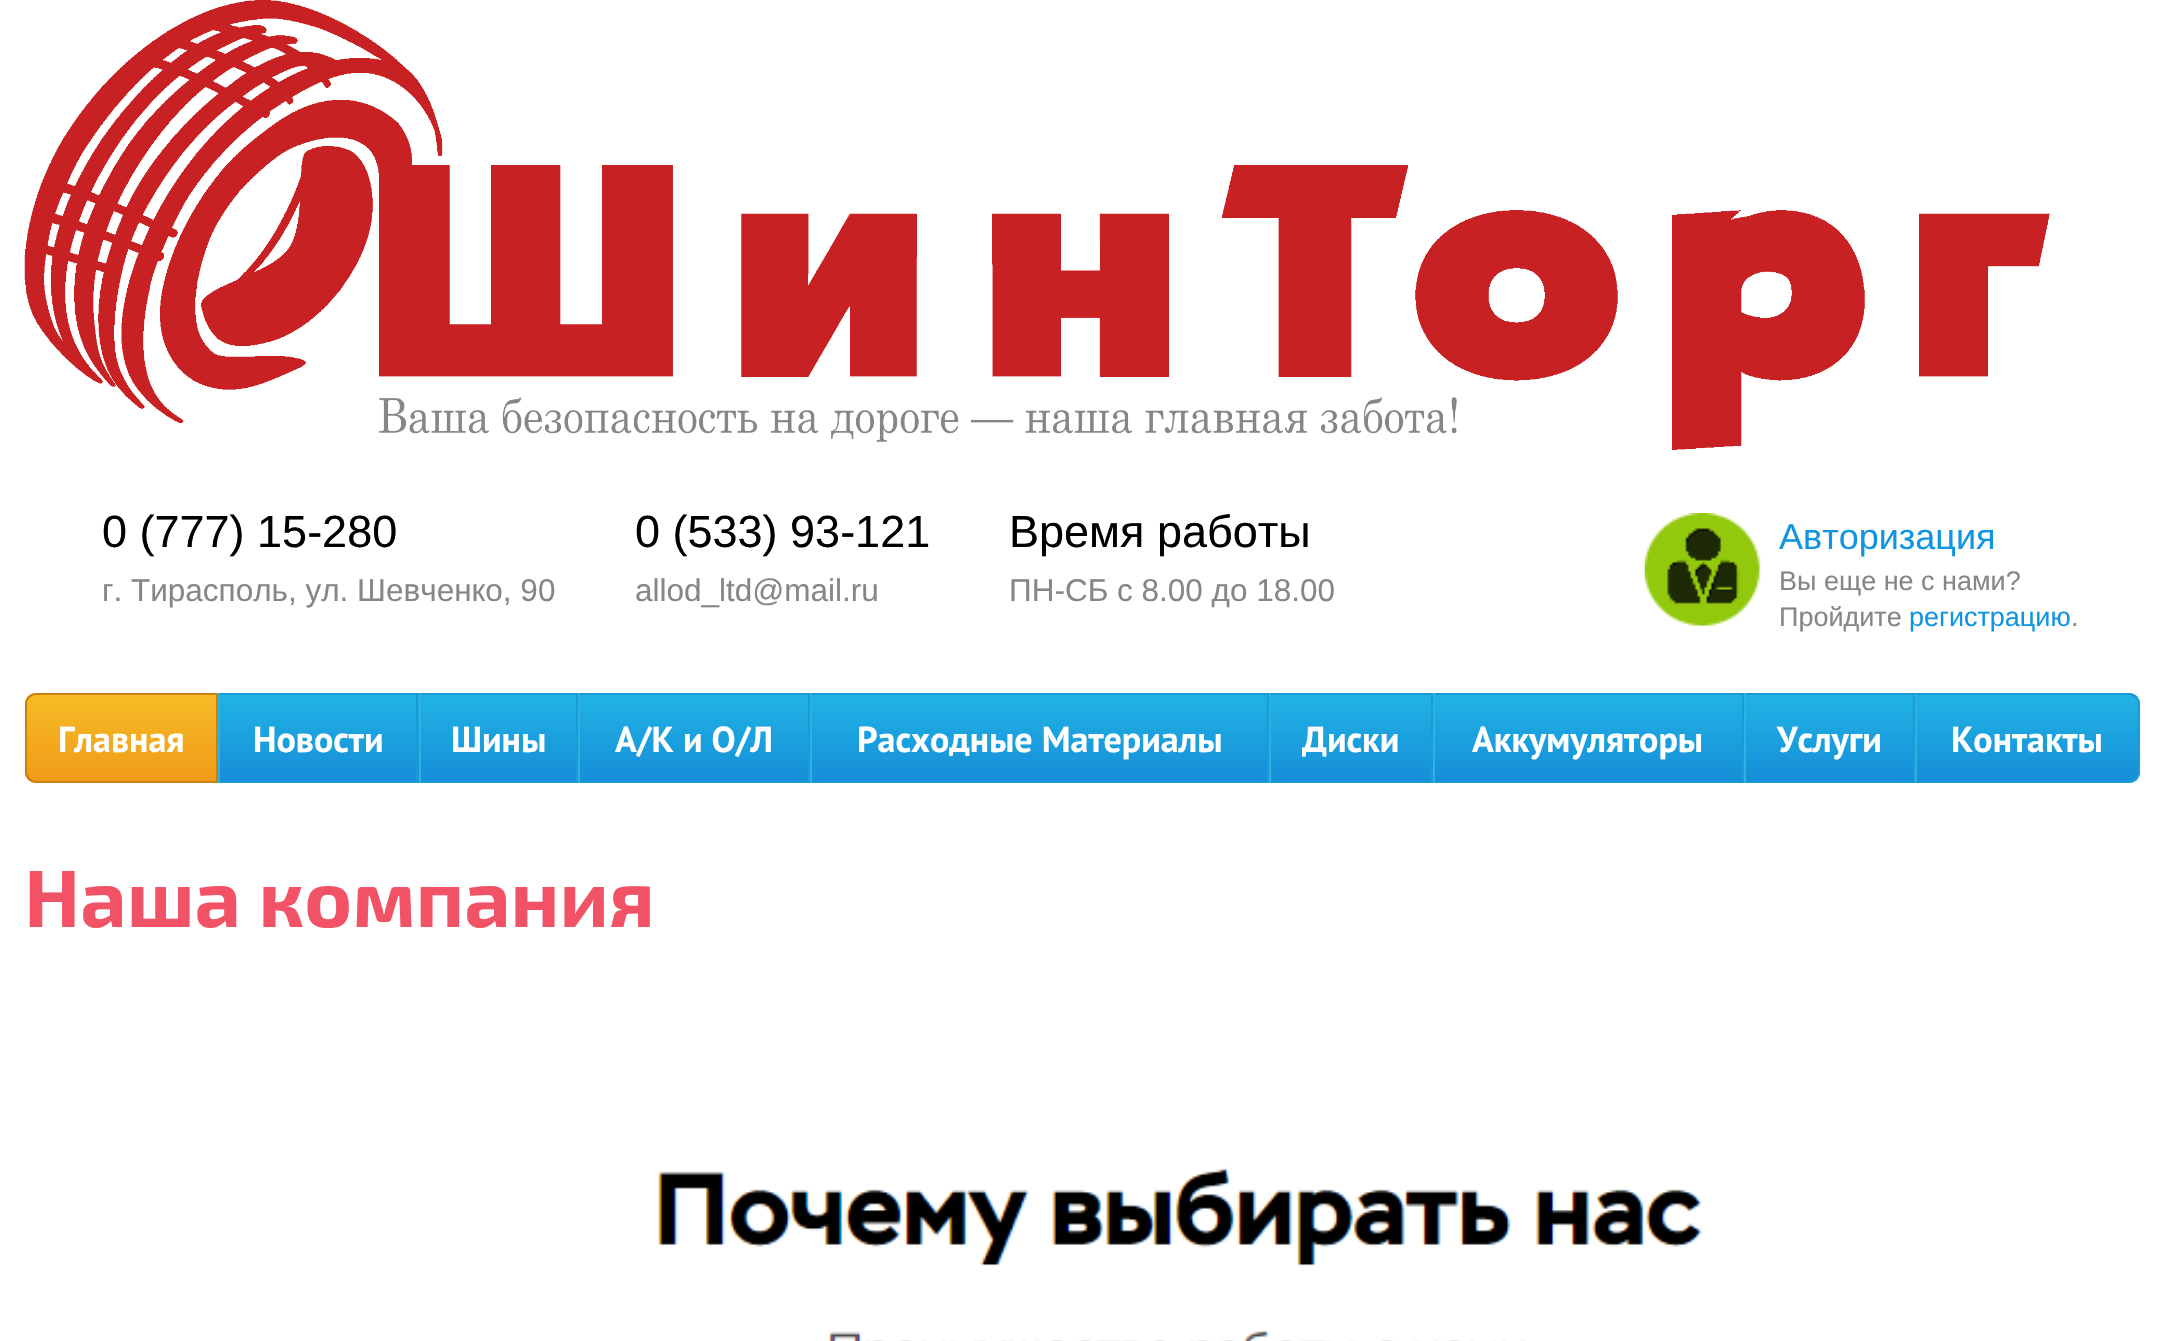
#include "include/core/SkBlurTypes.h"
#include "include/core/SkCanvas.h"
#include "include/core/SkData.h"
#include "include/core/SkFont.h"
#include "include/core/SkFontMgr.h"
#include "include/core/SkImage.h"
#include "include/core/SkMaskFilter.h"
#include "include/core/SkPaint.h"
#include "include/core/SkPathBuilder.h"
#include "include/core/SkTextBlob.h"
#include "include/effects/SkDashPathEffect.h"
#include "include/effects/SkGradientShader.h"
#include "include/utils/SkParsePath.h"

extern sk_sp<SkFontMgr> fontMgr;

static SkFont font(const char* family, int weight, float size, bool italic = false) {
    SkFontStyle style(weight, SkFontStyle::kNormal_Width,
        italic ? SkFontStyle::kItalic_Slant : SkFontStyle::kUpright_Slant);
    SkFont result(fontMgr->matchFamilyStyle(family, style), size);
    result.setSubpixel(true);
    return result;
}

static void drawLabel(SkCanvas* canvas, const char* s, float x, float y, const SkFont& font, SkColor color) {
    SkPaint ink(SkColor4f::FromColor(color));
    ink.setAntiAlias(true);
    canvas->drawString(s, x, y, font, ink);
}

static void fillRect(SkCanvas* canvas, float x, float y, float w, float h, SkColor color) {
    SkPaint ink(SkColor4f::FromColor(color));
    ink.setAntiAlias(true);
    canvas->drawRect(SkRect::MakeXYWH(x, y, w, h), ink);
}

static void drawPhoto(SkCanvas* canvas, const char* path, float x, float y, float w, float h) {
    auto image = SkImages::DeferredFromEncodedData(SkData::MakeFromFileName(path));
    canvas->drawImageRect(image, SkRect::MakeXYWH(x, y, w, h), SkSamplingOptions());
}

static SkPath parsePath(const char* data, bool evenOdd = false) {
    SkPath result = *SkParsePath::FromSVGString(data);
    if (evenOdd) result.setFillType(SkPathFillType::kEvenOdd);
    return result;
}

void draw(SkCanvas* canvas) {
    SkPaint paint;
    paint.setAntiAlias(true);
    canvas->clear(0xFFFFFFFF);
    drawPhoto(canvas, "assets/img1.png", 24, 0, 2026, 450);
    SkFont font1 = font("Liberation Sans", 400, 45);
    drawLabel(canvas, "0 (777) 15-280", 102, 547, font1, 0xFF000000);
    SkFont font2 = font("Liberation Sans", 400, 31.5f);
    drawLabel(canvas, "г. Тирасполь, ул. Шевченко, 90", 102, 601, font2, 0xFF898585);
    drawLabel(canvas, "0 (533) 93-121", 635, 547, font1, 0xFF000000);
    drawLabel(canvas, "allod_ltd@mail.ru", 635, 601, font2, 0xFF898585);
    drawLabel(canvas, "Время работы", 1009, 547, font1, 0xFF000000);
    drawLabel(canvas, "ПН-СБ с 8.00 до 18.00", 1009, 601, font2, 0xFF898585);
    drawPhoto(canvas, "assets/img2.png", 1644, 513, 117, 114);
    SkFont font3 = font("Liberation Sans", 400, 36);
    drawLabel(canvas, "Авторизация", 1779, 549, font3, 0xFF1295E1);
    SkFont font4 = font("Liberation Sans", 400, 27);
    drawLabel(canvas, "Вы еще не с нами?", 1779, 590, font4, 0xFF898585);
    drawLabel(canvas, "Пройдите", 1779, 626, font4, 0xFF898585);
    drawLabel(canvas, "регистрацию", 1909, 626, font4, 0xFF1295E1);
    drawLabel(canvas, ".", 2071, 626, font4, 0xFF898585);
    canvas->save();
    canvas->clipPath(parsePath("M36 693H218V783H36C30 783 25 778 25 772V704C25 698 30 693 36 693Z"), true);
    {
        const SkColor colors[] = {0xFFF5BB25, 0xFFF19B19};
        const float stops[] = {0, 1};
        const SkPoint ends[] = {{122, 695}, {122, 781}};
        paint.setShader(SkGradientShader::MakeLinear(ends, colors, stops, 2, SkTileMode::kClamp));
        paint.setAlpha(255);
    }
    canvas->drawRect(SkRect::MakeXYWH(25, 695, 191, 86), paint);
    canvas->restore();
    paint.setStroke(true);
    paint.setStrokeWidth(2);
    paint.setShader(nullptr);
    paint.setColor(0xFFCC8009);
    canvas->drawPath(parsePath("M36 694H217V782H36C30.5 782 26 777.5 26 772V704C26 698.5 30.5 694 36 694Z"), paint);
    SkFont font5 = font("PT Sans", 700, 36);
    drawLabel(canvas, "Главная", 58, 752, font5, 0xFFFFFFFF);
    paint.setStroke(false);
    {
        const SkColor colors[] = {0xFF20B3E4, 0xFF168ED8};
        const float stops[] = {0, 1};
        const SkPoint ends[] = {{318, 695}, {318, 781}};
        paint.setShader(SkGradientShader::MakeLinear(ends, colors, stops, 2, SkTileMode::kClamp));
        paint.setAlpha(255);
    }
    canvas->drawRect(SkRect::MakeXYWH(220, 695, 199, 86), paint);
    fillRect(canvas, 218, 693, 1697, 2, 0xFF1998DA);
    fillRect(canvas, 416, 693, 2, 90, 0xFF199BD4);
    fillRect(canvas, 218, 781, 201, 2, 0xFF1998DA);
    fillRect(canvas, 218, 693, 2, 90, 0xFF2EB1E3);
    drawLabel(canvas, "Новости", 253, 752, font5, 0xFFFFFFFF);
    {
        const SkColor colors[] = {0xFF20B3E4, 0xFF168ED8};
        const float stops[] = {0, 1};
        const SkPoint ends[] = {{498, 695}, {498, 781}};
        paint.setShader(SkGradientShader::MakeLinear(ends, colors, stops, 2, SkTileMode::kClamp));
        paint.setAlpha(255);
    }
    canvas->drawRect(SkRect::MakeXYWH(421, 695, 155, 86), paint);
    fillRect(canvas, 576, 693, 2, 90, 0xFF199BD4);
    fillRect(canvas, 419, 781, 159, 2, 0xFF1998DA);
    fillRect(canvas, 419, 693, 2, 90, 0xFF2EB1E3);
    drawLabel(canvas, "Шины", 451, 752, font5, 0xFFFFFFFF);
    {
        const SkColor colors[] = {0xFF20B3E4, 0xFF168ED8};
        const float stops[] = {0, 1};
        const SkPoint ends[] = {{694, 695}, {694, 781}};
        paint.setShader(SkGradientShader::MakeLinear(ends, colors, stops, 2, SkTileMode::kClamp));
        paint.setAlpha(255);
    }
    canvas->drawRect(SkRect::MakeXYWH(580, 695, 228, 86), paint);
    fillRect(canvas, 808, 693, 2, 90, 0xFF199BD4);
    fillRect(canvas, 578, 781, 232, 2, 0xFF1998DA);
    fillRect(canvas, 578, 693, 2, 90, 0xFF2EB1E3);
    drawLabel(canvas, "А/К и О/Л", 615, 752, font5, 0xFFFFFFFF);
    {
        const SkColor colors[] = {0xFF20B3E4, 0xFF168ED8};
        const float stops[] = {0, 1};
        const SkPoint ends[] = {{1040, 695}, {1040, 781}};
        paint.setShader(SkGradientShader::MakeLinear(ends, colors, stops, 2, SkTileMode::kClamp));
        paint.setAlpha(255);
    }
    canvas->drawRect(SkRect::MakeXYWH(812, 695, 455, 86), paint);
    fillRect(canvas, 1267, 693, 2, 90, 0xFF199BD4);
    fillRect(canvas, 810, 781, 459, 2, 0xFF1998DA);
    fillRect(canvas, 810, 693, 2, 90, 0xFF2EB1E3);
    drawLabel(canvas, "Расходные Материалы", 857, 752, font5, 0xFFFFFFFF);
    {
        const SkColor colors[] = {0xFF20B3E4, 0xFF168ED8};
        const float stops[] = {0, 1};
        const SkPoint ends[] = {{1351, 695}, {1351, 781}};
        paint.setShader(SkGradientShader::MakeLinear(ends, colors, stops, 2, SkTileMode::kClamp));
        paint.setAlpha(255);
    }
    canvas->drawRect(SkRect::MakeXYWH(1271, 695, 160, 86), paint);
    fillRect(canvas, 1431, 693, 2, 90, 0xFF199BD4);
    fillRect(canvas, 1269, 781, 164, 2, 0xFF1998DA);
    fillRect(canvas, 1269, 693, 2, 90, 0xFF2EB1E3);
    drawLabel(canvas, "Диски", 1302, 752, font5, 0xFFFFFFFF);
    {
        const SkColor colors[] = {0xFF20B3E4, 0xFF168ED8};
        const float stops[] = {0, 1};
        const SkPoint ends[] = {{1589, 695}, {1589, 781}};
        paint.setShader(SkGradientShader::MakeLinear(ends, colors, stops, 2, SkTileMode::kClamp));
        paint.setAlpha(255);
    }
    canvas->drawRect(SkRect::MakeXYWH(1435, 695, 307, 86), paint);
    fillRect(canvas, 1742, 693, 2, 90, 0xFF199BD4);
    fillRect(canvas, 1433, 781, 311, 2, 0xFF1998DA);
    fillRect(canvas, 1433, 693, 2, 90, 0xFF2EB1E3);
    drawLabel(canvas, "Аккумуляторы", 1472, 752, font5, 0xFFFFFFFF);
    {
        const SkColor colors[] = {0xFF20B3E4, 0xFF168ED8};
        const float stops[] = {0, 1};
        const SkPoint ends[] = {{1829, 695}, {1829, 781}};
        paint.setShader(SkGradientShader::MakeLinear(ends, colors, stops, 2, SkTileMode::kClamp));
        paint.setAlpha(255);
    }
    canvas->drawRect(SkRect::MakeXYWH(1746, 695, 167, 86), paint);
    fillRect(canvas, 1913, 693, 2, 90, 0xFF199BD4);
    fillRect(canvas, 1744, 781, 171, 2, 0xFF1998DA);
    fillRect(canvas, 1744, 693, 2, 90, 0xFF2EB1E3);
    drawLabel(canvas, "Услуги", 1777, 752, font5, 0xFFFFFFFF);
    canvas->save();
    canvas->clipPath(parsePath("M1915 693H2129C2135 693 2140 698 2140 704V772C2140 778 2135 783 2129 783H1915Z"), true);
    {
        const SkColor colors[] = {0xFF20B3E4, 0xFF168ED8};
        const float stops[] = {0, 1};
        const SkPoint ends[] = {{2027, 610}, {2027, 695}};
        paint.setShader(SkGradientShader::MakeLinear(ends, colors, stops, 2, SkTileMode::kClamp));
        paint.setAlpha(255);
    }
    canvas->drawRect(SkRect::MakeXYWH(1915, 693, 225, 2), paint);
    {
        const SkColor colors[] = {0xFF20B3E4, 0xFF168ED8};
        const float stops[] = {0, 1};
        const SkPoint ends[] = {{2027, 695}, {2027, 781}};
        paint.setShader(SkGradientShader::MakeLinear(ends, colors, stops, 2, SkTileMode::kClamp));
        paint.setAlpha(255);
    }
    canvas->drawRect(SkRect::MakeXYWH(1917, 695, 223, 86), paint);
    {
        const SkColor colors[] = {0xFF20B3E4, 0xFF168ED8};
        const float stops[] = {0, 1};
        const SkPoint ends[] = {{2027, 781}, {2027, 866}};
        paint.setShader(SkGradientShader::MakeLinear(ends, colors, stops, 2, SkTileMode::kClamp));
        paint.setAlpha(255);
    }
    canvas->drawRect(SkRect::MakeXYWH(1915, 781, 225, 2), paint);
    canvas->restore();
    paint.setShader(nullptr);
    paint.setColor(0xFF1998DA);
    canvas->drawPath(parsePath("M1915 693L1917 695H2128C2131 695 2133 696 2135 698L2137 696C2134 694 2131 693 2128 693Z"), paint);
    paint.setColor(0xFF199BD4);
    canvas->drawPath(parsePath("M2140 774C2139 776 2138 778 2137 780L2135 778C2137 777 2138 774 2138 772V704C2138 702 2137 699 2135 698L2137 696C2138 698 2139 700 2140 702Z"), paint);
    paint.setColor(0xFF1998DA);
    canvas->drawPath(parsePath("M1915 783H2128C2131 783 2134 782 2137 780L2135 778C2133 780 2131 781 2128 781H1917Z"), paint);
    paint.setColor(0xFF2EB1E3);
    canvas->drawPath(parsePath("M1915 693V783L1917 781V695Z"), paint);
    drawLabel(canvas, "Контакты", 1951, 752, font5, 0xFFFFFFFF);
    SkFont font6 = font("Exo 2", 700, 81);
    drawLabel(canvas, "Наша компания", 24, 927, font6, 0xFFF25266);
    drawPhoto(canvas, "assets/img3.png", 658, 1167, 1044, 174);
}
